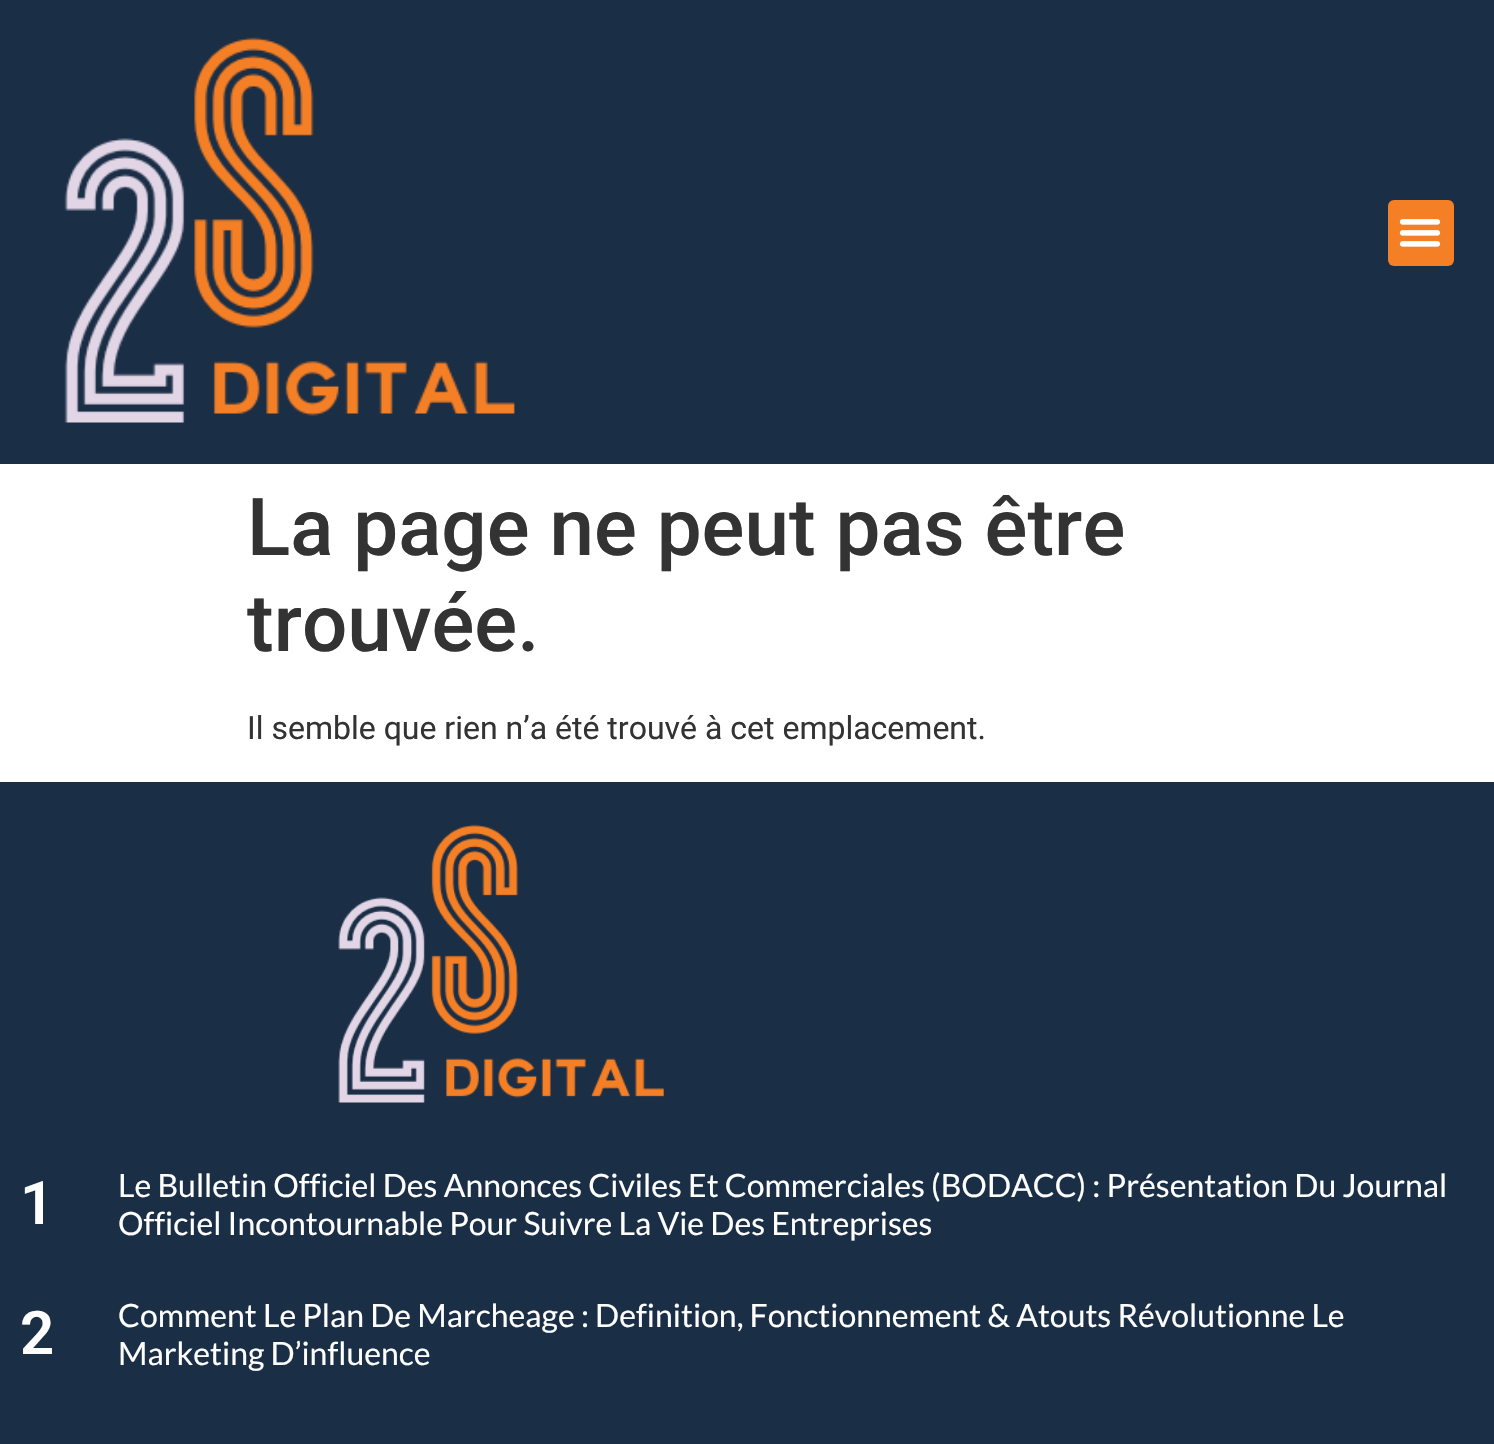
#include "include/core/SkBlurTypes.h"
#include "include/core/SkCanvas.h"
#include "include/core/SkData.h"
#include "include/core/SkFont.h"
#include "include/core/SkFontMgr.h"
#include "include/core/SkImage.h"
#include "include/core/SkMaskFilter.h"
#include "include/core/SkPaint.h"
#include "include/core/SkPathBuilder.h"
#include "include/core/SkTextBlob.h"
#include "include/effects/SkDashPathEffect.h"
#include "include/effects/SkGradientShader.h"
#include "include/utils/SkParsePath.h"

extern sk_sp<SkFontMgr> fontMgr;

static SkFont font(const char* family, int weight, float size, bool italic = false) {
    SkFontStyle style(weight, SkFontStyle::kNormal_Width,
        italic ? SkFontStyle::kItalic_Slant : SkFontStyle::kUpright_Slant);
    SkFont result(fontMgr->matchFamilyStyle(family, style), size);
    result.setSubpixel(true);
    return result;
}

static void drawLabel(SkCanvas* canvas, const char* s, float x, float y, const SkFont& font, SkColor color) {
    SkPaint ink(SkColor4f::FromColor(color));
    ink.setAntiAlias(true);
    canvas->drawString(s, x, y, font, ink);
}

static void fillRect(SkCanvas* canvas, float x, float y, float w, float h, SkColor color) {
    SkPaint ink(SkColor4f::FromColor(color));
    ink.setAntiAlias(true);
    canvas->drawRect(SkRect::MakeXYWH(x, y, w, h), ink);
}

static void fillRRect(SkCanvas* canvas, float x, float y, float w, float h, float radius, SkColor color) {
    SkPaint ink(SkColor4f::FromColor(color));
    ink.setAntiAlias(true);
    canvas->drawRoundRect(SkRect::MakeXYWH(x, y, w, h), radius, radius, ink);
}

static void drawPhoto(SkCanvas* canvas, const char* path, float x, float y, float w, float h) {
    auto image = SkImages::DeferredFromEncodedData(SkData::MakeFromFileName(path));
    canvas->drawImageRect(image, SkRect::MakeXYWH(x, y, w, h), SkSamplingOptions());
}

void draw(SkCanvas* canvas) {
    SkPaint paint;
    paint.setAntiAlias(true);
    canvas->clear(0xFFFFFFFF);
    fillRect(canvas, 0, 0, 1494, 464, 0xFF1A2E46);
    drawPhoto(canvas, "assets/img1.png", 64, 37, 451, 386);
    fillRRect(canvas, 1388, 200, 66, 66, 6, 0xFFF57F25);
    drawPhoto(canvas, "assets/img2.png", 1399, 219, 42, 28);
    SkFont font1 = font("Roboto", 500, 80);
    drawLabel(canvas, "La page ne peut pas être", 247, 555, font1, 0xFF333333);
    drawLabel(canvas, "trouvée.", 247, 651, font1, 0xFF333333);
    SkFont font2 = font("Roboto", 400, 32);
    drawLabel(canvas, "Il semble que rien n’a été trouvé à cet emplacement.", 247, 739, font2, 0xFF333333);
    fillRect(canvas, 0, 782, 1494, 662, 0xFF1A2E46);
    drawPhoto(canvas, "assets/img3.png", 338, 824, 326, 279);
    SkFont font3 = font("Roboto", 600, 60);
    drawLabel(canvas, "1", 20, 1224, font3, 0xFFFFFFFF);
    SkFont font4 = font("Lato", 400, 32);
    drawLabel(canvas, "Le Bulletin Officiel Des Annonces Civiles Et Commerciales (BODACC) : Présentation Du Journal", 118, 1197, font4, 0xFFFFFFFF);
    drawLabel(canvas, "Officiel Incontournable Pour Suivre La Vie Des Entreprises", 118, 1235, font4, 0xFFFFFFFF);
    drawLabel(canvas, "2", 20, 1354, font3, 0xFFFFFFFF);
    drawLabel(canvas, "Comment Le Plan De Marcheage : Definition, Fonctionnement & Atouts Révolutionne Le", 118, 1327, font4, 0xFFFFFFFF);
    drawLabel(canvas, "Marketing D’influence", 118, 1365, font4, 0xFFFFFFFF);
}
